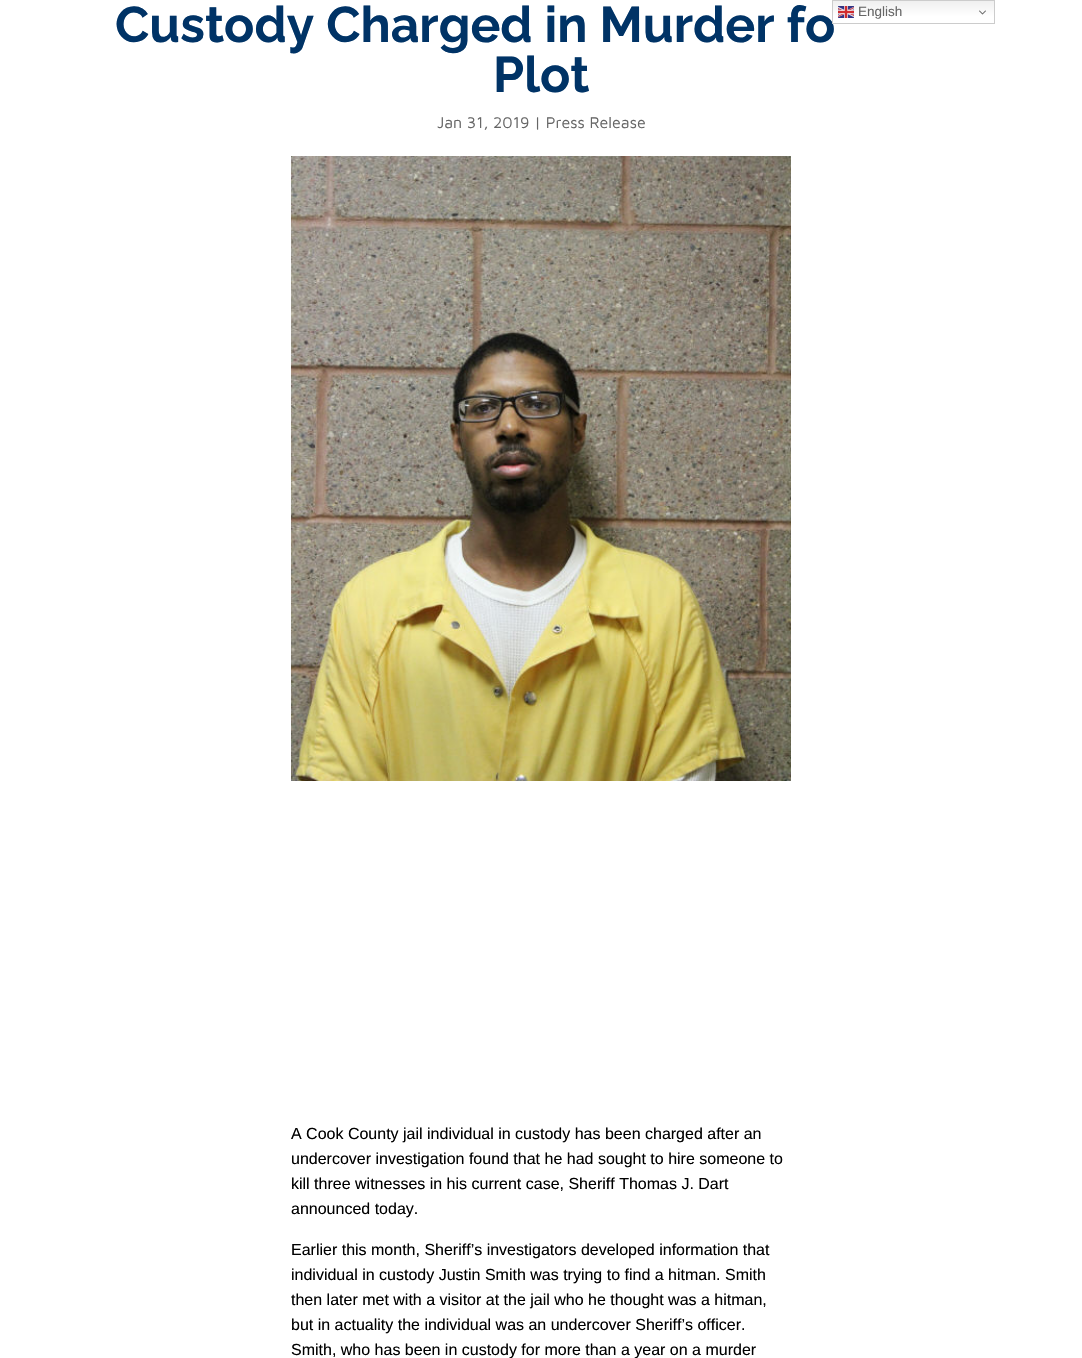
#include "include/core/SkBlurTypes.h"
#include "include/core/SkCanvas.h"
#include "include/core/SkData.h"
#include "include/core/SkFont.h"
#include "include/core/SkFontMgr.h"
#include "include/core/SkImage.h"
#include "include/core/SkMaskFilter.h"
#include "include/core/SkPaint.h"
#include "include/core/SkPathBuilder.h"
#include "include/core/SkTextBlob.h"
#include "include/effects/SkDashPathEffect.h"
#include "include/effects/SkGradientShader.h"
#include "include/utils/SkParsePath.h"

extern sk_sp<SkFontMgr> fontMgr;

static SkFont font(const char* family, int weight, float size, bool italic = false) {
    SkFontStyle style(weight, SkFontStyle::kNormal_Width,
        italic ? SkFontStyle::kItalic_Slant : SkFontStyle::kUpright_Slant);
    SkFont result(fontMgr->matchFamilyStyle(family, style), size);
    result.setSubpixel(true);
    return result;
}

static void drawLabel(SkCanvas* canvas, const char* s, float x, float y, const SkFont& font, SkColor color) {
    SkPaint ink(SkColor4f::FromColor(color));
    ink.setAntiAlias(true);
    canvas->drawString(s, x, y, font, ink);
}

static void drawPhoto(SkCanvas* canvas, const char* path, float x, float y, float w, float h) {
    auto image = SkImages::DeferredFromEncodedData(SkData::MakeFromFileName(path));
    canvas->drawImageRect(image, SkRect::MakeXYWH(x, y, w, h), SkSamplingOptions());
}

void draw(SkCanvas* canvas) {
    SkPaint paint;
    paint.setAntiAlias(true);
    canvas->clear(0xFFFFFFFF);
    SkFont font1 = font("Raleway", 700, 50);
    drawLabel(canvas, "Custody Charged in Murder fo", 115, 42, font1, 0xFF003366);
    drawLabel(canvas, "Plot", 493, 92, font1, 0xFF003366);
    SkFont font2 = font("Maven Pro", 400, 16);
    drawLabel(canvas, "Jan 31, 2019 | Press Release", 437, 128, font2, 0xFF666666);
    drawPhoto(canvas, "assets/img1.png", 291, 156, 500, 625);
    SkFont font3 = font("Liberation Sans", 400, 16);
    drawLabel(canvas, "A Cook County jail individual in custody has been charged after an", 291, 1139, font3, 0xFF000000);
    drawLabel(canvas, "undercover investigation found that he had sought to hire someone to", 291, 1164, font3, 0xFF000000);
    drawLabel(canvas, "kill three witnesses in his current case, Sheriff Thomas J. Dart", 291, 1189, font3, 0xFF000000);
    drawLabel(canvas, "announced today.", 291, 1214, font3, 0xFF000000);
    drawLabel(canvas, "Earlier this month, Sheriff’s investigators developed information that", 291, 1255, font3, 0xFF000000);
    drawLabel(canvas, "individual in custody Justin Smith was trying to find a hitman. Smith", 291, 1280, font3, 0xFF000000);
    drawLabel(canvas, "then later met with a visitor at the jail who he thought was a hitman,", 291, 1305, font3, 0xFF000000);
    drawLabel(canvas, "but in actuality the individual was an undercover Sheriff’s officer.", 291, 1330, font3, 0xFF000000);
    drawLabel(canvas, "Smith, who has been in custody for more than a year on a murder", 291, 1355, font3, 0xFF000000);
    {
        const SkColor colors[] = {0xFFEFEFEF, 0xFFFFFFFF};
        const float stops[] = {0, 0.7f};
        const SkPoint ends[] = {{914, 0}, {914, 24}};
        paint.setShader(SkGradientShader::MakeLinear(ends, colors, stops, 2, SkTileMode::kClamp));
        paint.setAlpha(255);
    }
    canvas->drawRect(SkRect::MakeXYWH(833, 1, 161, 22), paint);
    paint.setStroke(true);
    paint.setStrokeWidth(1);
    paint.setShader(nullptr);
    paint.setColor(0xFFCCCCCC);
    canvas->drawRect(SkRect::MakeXYWH(832.5f, 0.5f, 162, 23), paint);
    drawPhoto(canvas, "assets/img2.png", 838, 6, 16, 12);
    SkFont font4 = font("Liberation Sans", 400, 13.5f);
    drawLabel(canvas, "English", 858, 16, font4, 0xFF666666);
    drawPhoto(canvas, "assets/img3.png", 979, 10, 7, 5);
}
